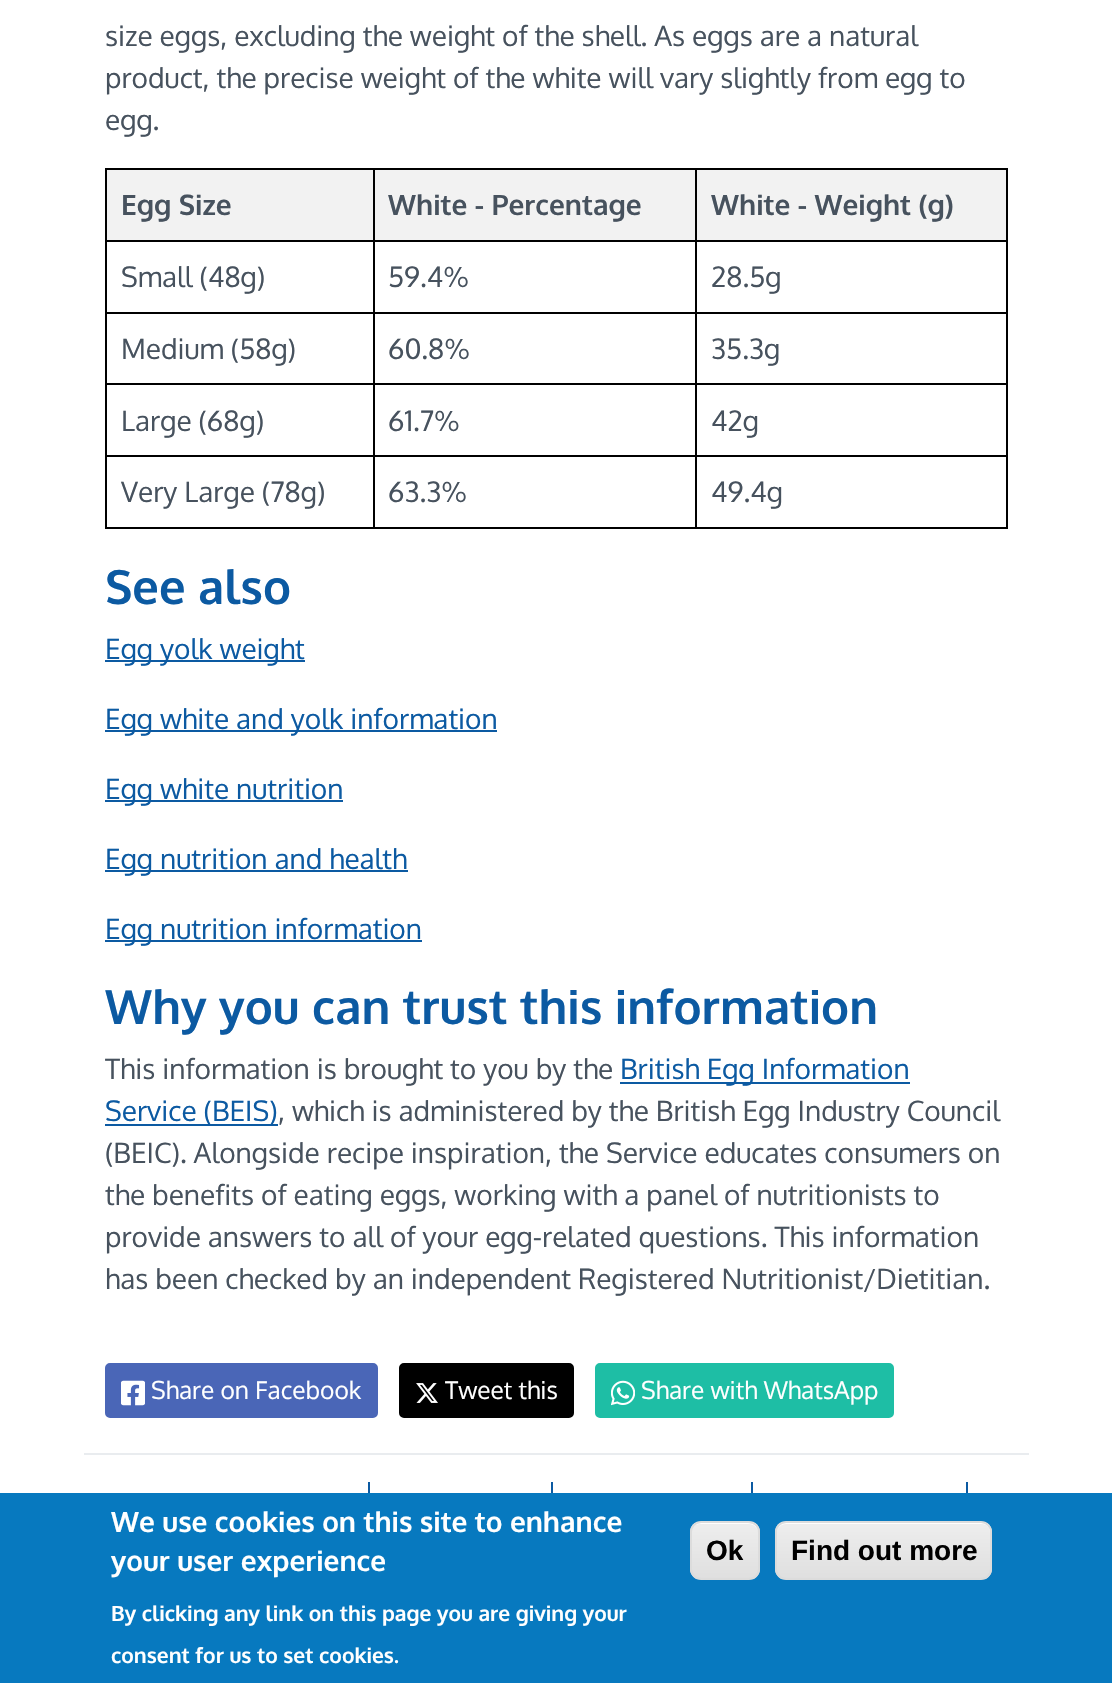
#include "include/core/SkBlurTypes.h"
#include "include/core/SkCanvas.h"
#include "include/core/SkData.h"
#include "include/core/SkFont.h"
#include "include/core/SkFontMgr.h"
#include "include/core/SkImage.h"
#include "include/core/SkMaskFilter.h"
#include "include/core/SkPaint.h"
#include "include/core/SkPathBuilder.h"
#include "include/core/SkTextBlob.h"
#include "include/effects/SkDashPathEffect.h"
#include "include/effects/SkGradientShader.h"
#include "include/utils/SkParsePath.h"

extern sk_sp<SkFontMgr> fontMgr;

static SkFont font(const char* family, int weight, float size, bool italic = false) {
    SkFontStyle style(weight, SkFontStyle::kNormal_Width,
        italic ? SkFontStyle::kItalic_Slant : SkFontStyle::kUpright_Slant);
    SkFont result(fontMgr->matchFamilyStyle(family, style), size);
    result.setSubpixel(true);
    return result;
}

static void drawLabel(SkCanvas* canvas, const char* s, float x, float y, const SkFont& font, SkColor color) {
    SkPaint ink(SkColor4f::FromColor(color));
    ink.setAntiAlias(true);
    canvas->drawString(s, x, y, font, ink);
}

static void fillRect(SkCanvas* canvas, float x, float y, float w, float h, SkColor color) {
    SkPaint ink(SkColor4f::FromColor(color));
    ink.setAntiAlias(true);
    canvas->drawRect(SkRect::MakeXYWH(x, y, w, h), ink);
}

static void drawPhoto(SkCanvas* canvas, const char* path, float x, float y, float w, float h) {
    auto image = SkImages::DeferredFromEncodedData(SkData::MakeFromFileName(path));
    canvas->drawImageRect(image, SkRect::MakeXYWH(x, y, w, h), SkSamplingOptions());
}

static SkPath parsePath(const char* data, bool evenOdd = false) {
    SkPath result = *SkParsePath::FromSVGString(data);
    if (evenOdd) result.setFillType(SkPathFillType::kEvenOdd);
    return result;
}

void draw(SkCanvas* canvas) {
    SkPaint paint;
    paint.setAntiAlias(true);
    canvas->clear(0xFFFFFFFF);
    SkFont font1 = font("Oxygen", 400, 28);
    drawLabel(canvas, "size eggs, excluding the weight of the shell. As eggs are a natural", 105, 46, font1, 0xFF47525E);
    drawLabel(canvas, "product, the precise weight of the white will vary slightly from egg to", 105, 88, font1, 0xFF47525E);
    drawLabel(canvas, "egg.", 105, 130, font1, 0xFF47525E);
    fillRect(canvas, 105, 168, 903, 2, 0xFF000000);
    fillRect(canvas, 1006, 168, 2, 361, 0xFF000000);
    fillRect(canvas, 105, 527, 903, 2, 0xFF000000);
    fillRect(canvas, 105, 168, 2, 361, 0xFF000000);
    fillRect(canvas, 107, 170, 266, 70, 0xFFF2F2F2);
    SkFont font2 = font("Oxygen", 700, 28);
    drawLabel(canvas, "Egg Size", 121, 215, font2, 0xFF47525E);
    fillRect(canvas, 375, 170, 320, 70, 0xFFF2F2F2);
    fillRect(canvas, 695, 240, 313, 2, 0xFF000000);
    fillRect(canvas, 695, 312, 313, 2, 0xFF000000);
    fillRect(canvas, 695, 383, 313, 2, 0xFF000000);
    fillRect(canvas, 695, 455, 313, 2, 0xFF000000);
    fillRect(canvas, 695, 455, 2, 74, 0xFF000000);
    fillRect(canvas, 373, 455, 324, 2, 0xFF000000);
    fillRect(canvas, 695, 383, 2, 74, 0xFF000000);
    fillRect(canvas, 373, 383, 324, 2, 0xFF000000);
    fillRect(canvas, 695, 312, 2, 73, 0xFF000000);
    fillRect(canvas, 373, 312, 324, 2, 0xFF000000);
    fillRect(canvas, 695, 240, 2, 73, 0xFF000000);
    fillRect(canvas, 373, 240, 324, 2, 0xFF000000);
    fillRect(canvas, 373, 455, 2, 74, 0xFF000000);
    fillRect(canvas, 105, 455, 270, 2, 0xFF000000);
    fillRect(canvas, 373, 383, 2, 74, 0xFF000000);
    fillRect(canvas, 105, 383, 270, 2, 0xFF000000);
    fillRect(canvas, 373, 312, 2, 73, 0xFF000000);
    fillRect(canvas, 105, 312, 270, 2, 0xFF000000);
    fillRect(canvas, 373, 240, 2, 73, 0xFF000000);
    fillRect(canvas, 105, 240, 270, 2, 0xFF000000);
    fillRect(canvas, 373, 168, 2, 74, 0xFF000000);
    drawLabel(canvas, "White - Percentage", 388, 215, font2, 0xFF47525E);
    fillRect(canvas, 697, 170, 309, 70, 0xFFF2F2F2);
    fillRect(canvas, 695, 168, 2, 74, 0xFF000000);
    drawLabel(canvas, "White - Weight (g)", 711, 215, font2, 0xFF47525E);
    drawLabel(canvas, "Small (48g)", 121, 287, font1, 0xFF47525E);
    drawLabel(canvas, "59.4%", 388, 287, font1, 0xFF47525E);
    drawLabel(canvas, "28.5g", 711, 287, font1, 0xFF47525E);
    drawLabel(canvas, "Medium (58g)", 121, 359, font1, 0xFF47525E);
    drawLabel(canvas, "60.8%", 388, 359, font1, 0xFF47525E);
    drawLabel(canvas, "35.3g", 711, 359, font1, 0xFF47525E);
    drawLabel(canvas, "Large (68g)", 121, 431, font1, 0xFF47525E);
    drawLabel(canvas, "61.7%", 388, 431, font1, 0xFF47525E);
    drawLabel(canvas, "42g", 711, 431, font1, 0xFF47525E);
    drawLabel(canvas, "Very Large (78g)", 121, 502, font1, 0xFF47525E);
    drawLabel(canvas, "63.3%", 388, 502, font1, 0xFF47525E);
    drawLabel(canvas, "49.4g", 711, 502, font1, 0xFF47525E);
    SkFont font3 = font("Oxygen", 700, 47.1f);
    drawLabel(canvas, "See also", 105, 604, font3, 0xFF0C5AA2);
    fillRect(canvas, 105, 660, 200, 2, 0xFF0C5AA2);
    drawLabel(canvas, "Egg yolk weight", 105, 659, font1, 0xFF0C5AA2);
    fillRect(canvas, 105, 730, 392, 2, 0xFF0C5AA2);
    drawLabel(canvas, "Egg white and yolk information", 105, 729, font1, 0xFF0C5AA2);
    fillRect(canvas, 105, 800, 238, 2, 0xFF0C5AA2);
    drawLabel(canvas, "Egg white nutrition", 105, 799, font1, 0xFF0C5AA2);
    fillRect(canvas, 105, 870, 303, 2, 0xFF0C5AA2);
    drawLabel(canvas, "Egg nutrition and health", 105, 869, font1, 0xFF0C5AA2);
    fillRect(canvas, 105, 940, 317, 2, 0xFF0C5AA2);
    drawLabel(canvas, "Egg nutrition information", 105, 939, font1, 0xFF0C5AA2);
    drawLabel(canvas, "Why you can trust this information", 105, 1024, font3, 0xFF0C5AA2);
    drawLabel(canvas, "This information is brought to you by the", 105, 1079, font1, 0xFF47525E);
    fillRect(canvas, 620, 1082, 290, 2, 0xFF0C5AA2);
    drawLabel(canvas, "British Egg Information", 620, 1079, font1, 0xFF0C5AA2);
    fillRect(canvas, 105, 1124, 173, 2, 0xFF0C5AA2);
    drawLabel(canvas, "Service (BEIS)", 105, 1121, font1, 0xFF0C5AA2);
    drawLabel(canvas, ", which is administered by the British Egg Industry Council", 278, 1121, font1, 0xFF47525E);
    drawLabel(canvas, "(BEIC). Alongside recipe inspiration, the Service educates consumers on", 105, 1163, font1, 0xFF47525E);
    drawLabel(canvas, "the benefits of eating eggs, working with a panel of nutritionists to", 105, 1205, font1, 0xFF47525E);
    drawLabel(canvas, "provide answers to all of your egg-related questions. This information", 105, 1247, font1, 0xFF47525E);
    drawLabel(canvas, "has been checked by an independent Registered Nutritionist/Dietitian.", 105, 1289, font1, 0xFF47525E);
    paint.setColor(0xFF4A66B7);
    canvas->drawRoundRect(SkRect::MakeXYWH(106, 1364, 271, 53), 4, 4, paint);
    paint.setStroke(true);
    paint.setStrokeWidth(2);
    canvas->drawRoundRect(SkRect::MakeXYWH(106, 1364, 271, 53), 4, 4, paint);
    drawPhoto(canvas, "assets/img1.png", 121, 1380, 24, 26);
    SkFont font4 = font("Oxygen", 400, 24.5f);
    drawLabel(canvas, "Share on Facebook", 151, 1399, font4, 0xFFFFFFFF);
    paint.setStroke(false);
    paint.setColor(0xFF000000);
    canvas->drawRoundRect(SkRect::MakeXYWH(400, 1364, 173, 53), 4, 4, paint);
    paint.setStroke(true);
    canvas->drawRoundRect(SkRect::MakeXYWH(400, 1364, 173, 53), 4, 4, paint);
    drawPhoto(canvas, "assets/img2.png", 416, 1383, 22, 20);
    drawLabel(canvas, "Tweet this", 445, 1399, font4, 0xFFFFFFFF);
    paint.setStroke(false);
    paint.setColor(0xFF1EBEA5);
    canvas->drawRoundRect(SkRect::MakeXYWH(596, 1364, 297, 53), 4, 4, paint);
    paint.setStroke(true);
    canvas->drawRoundRect(SkRect::MakeXYWH(596, 1364, 297, 53), 4, 4, paint);
    drawPhoto(canvas, "assets/img3.png", 611, 1380, 24, 26);
    drawLabel(canvas, "Share with WhatsApp", 641, 1399, font4, 0xFFFFFFFF);
    fillRect(canvas, 84, 1453, 945, 2, 0xFFE9ECEF);
    fillRect(canvas, 368, 1482, 2, 11, 0xFF0C5AA2);
    fillRect(canvas, 551, 1482, 2, 11, 0xFF0C5AA2);
    fillRect(canvas, 751, 1482, 2, 11, 0xFF0C5AA2);
    fillRect(canvas, 966, 1482, 2, 11, 0xFF0C5AA2);
    fillRect(canvas, 0, 1493, 1112, 190, 0xFF0779BF);
    drawLabel(canvas, "We use cookies on this site to enhance", 111, 1532, font2, 0xFFFFFFFF);
    drawLabel(canvas, "your user experience", 111, 1571, font2, 0xFFFFFFFF);
    SkFont font5 = font("Oxygen", 700, 21);
    drawLabel(canvas, "By clicking any link on this page you are giving your", 111, 1621, font5, 0xFFFFFFFF);
    drawLabel(canvas, "consent for us to set cookies.", 111, 1663, font5, 0xFFFFFFFF);
    canvas->save();
    canvas->clipPath(parsePath("M701 1521H749C755 1521 760 1526 760 1532V1569C760 1575 755 1580 749 1580H701C695 1580 690 1575 690 1569V1532C690 1526 695 1521 701 1521Z"), true);
    paint.setStroke(false);
    {
        const SkColor colors[] = {0xFFEDEDED, 0xFFDFDFDF};
        const float stops[] = {0.05f, 1};
        const SkPoint ends[] = {{725, 1523}, {725, 1579}};
        paint.setShader(SkGradientShader::MakeLinear(ends, colors, stops, 2, SkTileMode::kClamp));
        paint.setAlpha(255);
    }
    canvas->drawRect(SkRect::MakeXYWH(690, 1523, 70, 56), paint);
    canvas->restore();
    paint.setShader(nullptr);
    paint.setColor(0xFFFFFFFF);
    canvas->drawPath(parsePath("M700 1524H749C754 1524 758 1528 758 1533C758 1522 749 1523 741 1523H708C700 1523 691 1522 691 1533C691 1528 695 1524 700 1524Z"), paint);
    paint.setStroke(true);
    paint.setColor(0xFFDCDCDC);
    canvas->drawRoundRect(SkRect::MakeXYWH(691, 1522, 68, 57), 10, 10, paint);
    SkFont font6 = font("Liberation Sans", 700, 28);
    drawLabel(canvas, "Ok", 706, 1560, font6, 0xFF000000);
    canvas->save();
    canvas->clipPath(parsePath("M786 1521H981C987 1521 992 1526 992 1532V1569C992 1575 987 1580 981 1580H786C780 1580 775 1575 775 1569V1532C775 1526 780 1521 786 1521Z"), true);
    paint.setStroke(false);
    {
        const SkColor colors[] = {0xFFEDEDED, 0xFFDFDFDF};
        const float stops[] = {0.05f, 1};
        const SkPoint ends[] = {{884, 1523}, {884, 1579}};
        paint.setShader(SkGradientShader::MakeLinear(ends, colors, stops, 2, SkTileMode::kClamp));
        paint.setAlpha(255);
    }
    canvas->drawRect(SkRect::MakeXYWH(775, 1523, 217, 56), paint);
    canvas->restore();
    paint.setShader(nullptr);
    paint.setColor(0xFFFFFFFF);
    canvas->drawPath(parsePath("M786 1524H982C987 1524 990 1528 990 1533V1572L989 1575C990 1574 991 1572 991 1570V1532C991 1527 987 1523 982 1523H786C781 1523 777 1527 777 1532V1533C777 1528 781 1524 786 1524Z"), paint);
    paint.setStroke(true);
    paint.setColor(0xFFDCDCDC);
    canvas->drawRoundRect(SkRect::MakeXYWH(776, 1522, 215, 57), 10, 10, paint);
    drawLabel(canvas, "Find out more", 791, 1560, font6, 0xFF000000);
}
